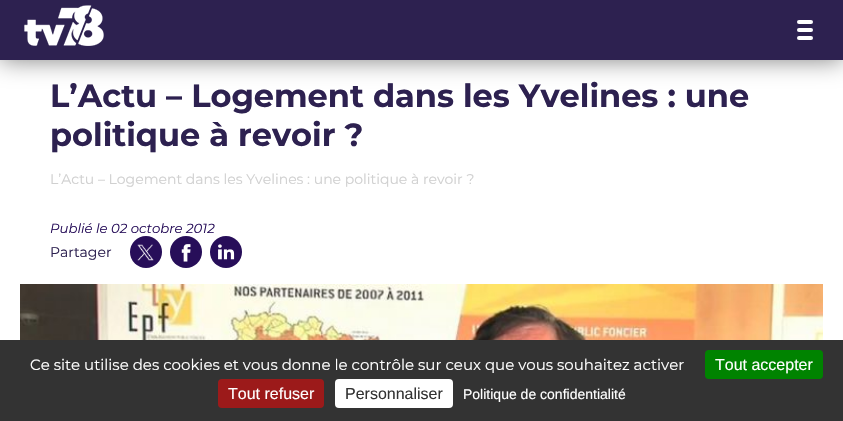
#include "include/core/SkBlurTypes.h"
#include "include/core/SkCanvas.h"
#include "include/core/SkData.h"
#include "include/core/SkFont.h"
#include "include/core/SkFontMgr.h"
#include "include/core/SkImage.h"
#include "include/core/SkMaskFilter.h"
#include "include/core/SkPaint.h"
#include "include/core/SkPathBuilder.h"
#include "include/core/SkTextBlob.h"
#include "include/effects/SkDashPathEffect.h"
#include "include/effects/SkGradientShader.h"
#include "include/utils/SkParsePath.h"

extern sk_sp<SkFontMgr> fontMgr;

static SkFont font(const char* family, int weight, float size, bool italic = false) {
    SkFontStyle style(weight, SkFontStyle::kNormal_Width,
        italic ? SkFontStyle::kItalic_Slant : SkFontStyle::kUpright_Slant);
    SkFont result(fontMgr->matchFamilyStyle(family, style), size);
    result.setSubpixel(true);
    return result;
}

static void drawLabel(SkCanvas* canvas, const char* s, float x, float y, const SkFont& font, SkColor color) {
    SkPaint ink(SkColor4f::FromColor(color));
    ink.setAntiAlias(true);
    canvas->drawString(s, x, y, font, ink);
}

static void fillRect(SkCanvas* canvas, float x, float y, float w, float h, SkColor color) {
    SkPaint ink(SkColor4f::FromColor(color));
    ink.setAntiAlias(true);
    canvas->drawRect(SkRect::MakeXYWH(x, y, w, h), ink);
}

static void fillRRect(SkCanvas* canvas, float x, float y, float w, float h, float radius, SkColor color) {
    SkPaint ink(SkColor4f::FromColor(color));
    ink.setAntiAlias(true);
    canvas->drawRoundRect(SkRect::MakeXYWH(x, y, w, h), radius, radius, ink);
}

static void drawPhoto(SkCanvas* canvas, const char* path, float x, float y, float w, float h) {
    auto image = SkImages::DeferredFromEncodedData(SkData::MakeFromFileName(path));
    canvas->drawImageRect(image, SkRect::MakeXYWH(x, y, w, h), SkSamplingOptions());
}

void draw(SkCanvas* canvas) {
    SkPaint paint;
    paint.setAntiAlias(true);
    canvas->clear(0xFFFFFFFF);
    paint.setColor(0x80000000);
    paint.setMaskFilter(SkMaskFilter::MakeBlur(kNormal_SkBlurStyle, 12.5f));
    canvas->drawRect(SkRect::MakeXYWH(0, 0, 843, 60), paint);
    paint.setMaskFilter(nullptr);
    fillRect(canvas, 0, 0, 843, 60, 0xFF2D2150);
    drawPhoto(canvas, "assets/img1.png", 24, 5, 80, 41);
    fillRRect(canvas, 797, 20, 16, 4, 2, 0xFFFFFFFF);
    fillRRect(canvas, 797, 28, 16, 4, 2, 0xFFFFFFFF);
    fillRRect(canvas, 797, 36, 16, 4, 2, 0xFFFFFFFF);
    SkFont font1 = font("Montserrat", 700, 32);
    drawLabel(canvas, "L’Actu – Logement dans les Yvelines : une", 50, 107, font1, 0xFF2D2150);
    drawLabel(canvas, "politique à revoir ?", 50, 146, font1, 0xFF2D2150);
    SkFont font2 = font("Montserrat", 400, 14);
    drawLabel(canvas, "L’Actu – Logement dans les Yvelines : une politique à revoir ?", 50, 184, font2, 0xFFD0D0D0);
    SkFont font3 = font("Montserrat", 400, 13.25f, true);
    drawLabel(canvas, "Publié le 02 octobre 2012", 50, 233, font3, 0xFF270E59);
    drawLabel(canvas, "Partager", 50, 257, font2, 0xFF2D2150);
    paint.setColor(0xFF270E59);
    canvas->drawCircle(146, 252, 16, paint);
    drawPhoto(canvas, "assets/img2.png", 137, 244, 17, 17);
    canvas->drawCircle(186, 252, 16, paint);
    drawPhoto(canvas, "assets/img3.png", 181, 244, 10, 18);
    canvas->drawCircle(226, 252, 16, paint);
    drawPhoto(canvas, "assets/img4.png", 218, 244, 17, 16);
    drawPhoto(canvas, "assets/img5.png", 20, 284, 803, 56);
    fillRect(canvas, 0, 340, 843, 81, 0xFF333333);
    SkFont font4 = font("Montserrat", 400, 15);
    drawLabel(canvas, "Ce site utilise des cookies et vous donne le contrôle sur ceux que vous souhaitez activer", 30, 370, font4, 0xFFFFFFFF);
    fillRRect(canvas, 705, 350, 118, 29, 4, 0xFF008300);
    SkFont font5 = font("Liberation Sans", 400, 16);
    drawLabel(canvas, "Tout accepter", 715, 370, font5, 0xFFFFFFFF);
    fillRRect(canvas, 218, 379, 106, 29, 4, 0xFF9C1A1A);
    drawLabel(canvas, "Tout refuser", 228, 399, font5, 0xFFFFFFFF);
    fillRRect(canvas, 335, 379, 118, 29, 4, 0xFFFFFFFF);
    drawLabel(canvas, "Personnaliser", 345, 399, font5, 0xFF333333);
    SkFont font6 = font("Liberation Sans", 400, 14);
    drawLabel(canvas, "Politique de confidentialité", 463, 399, font6, 0xFFFFFFFF);
}
